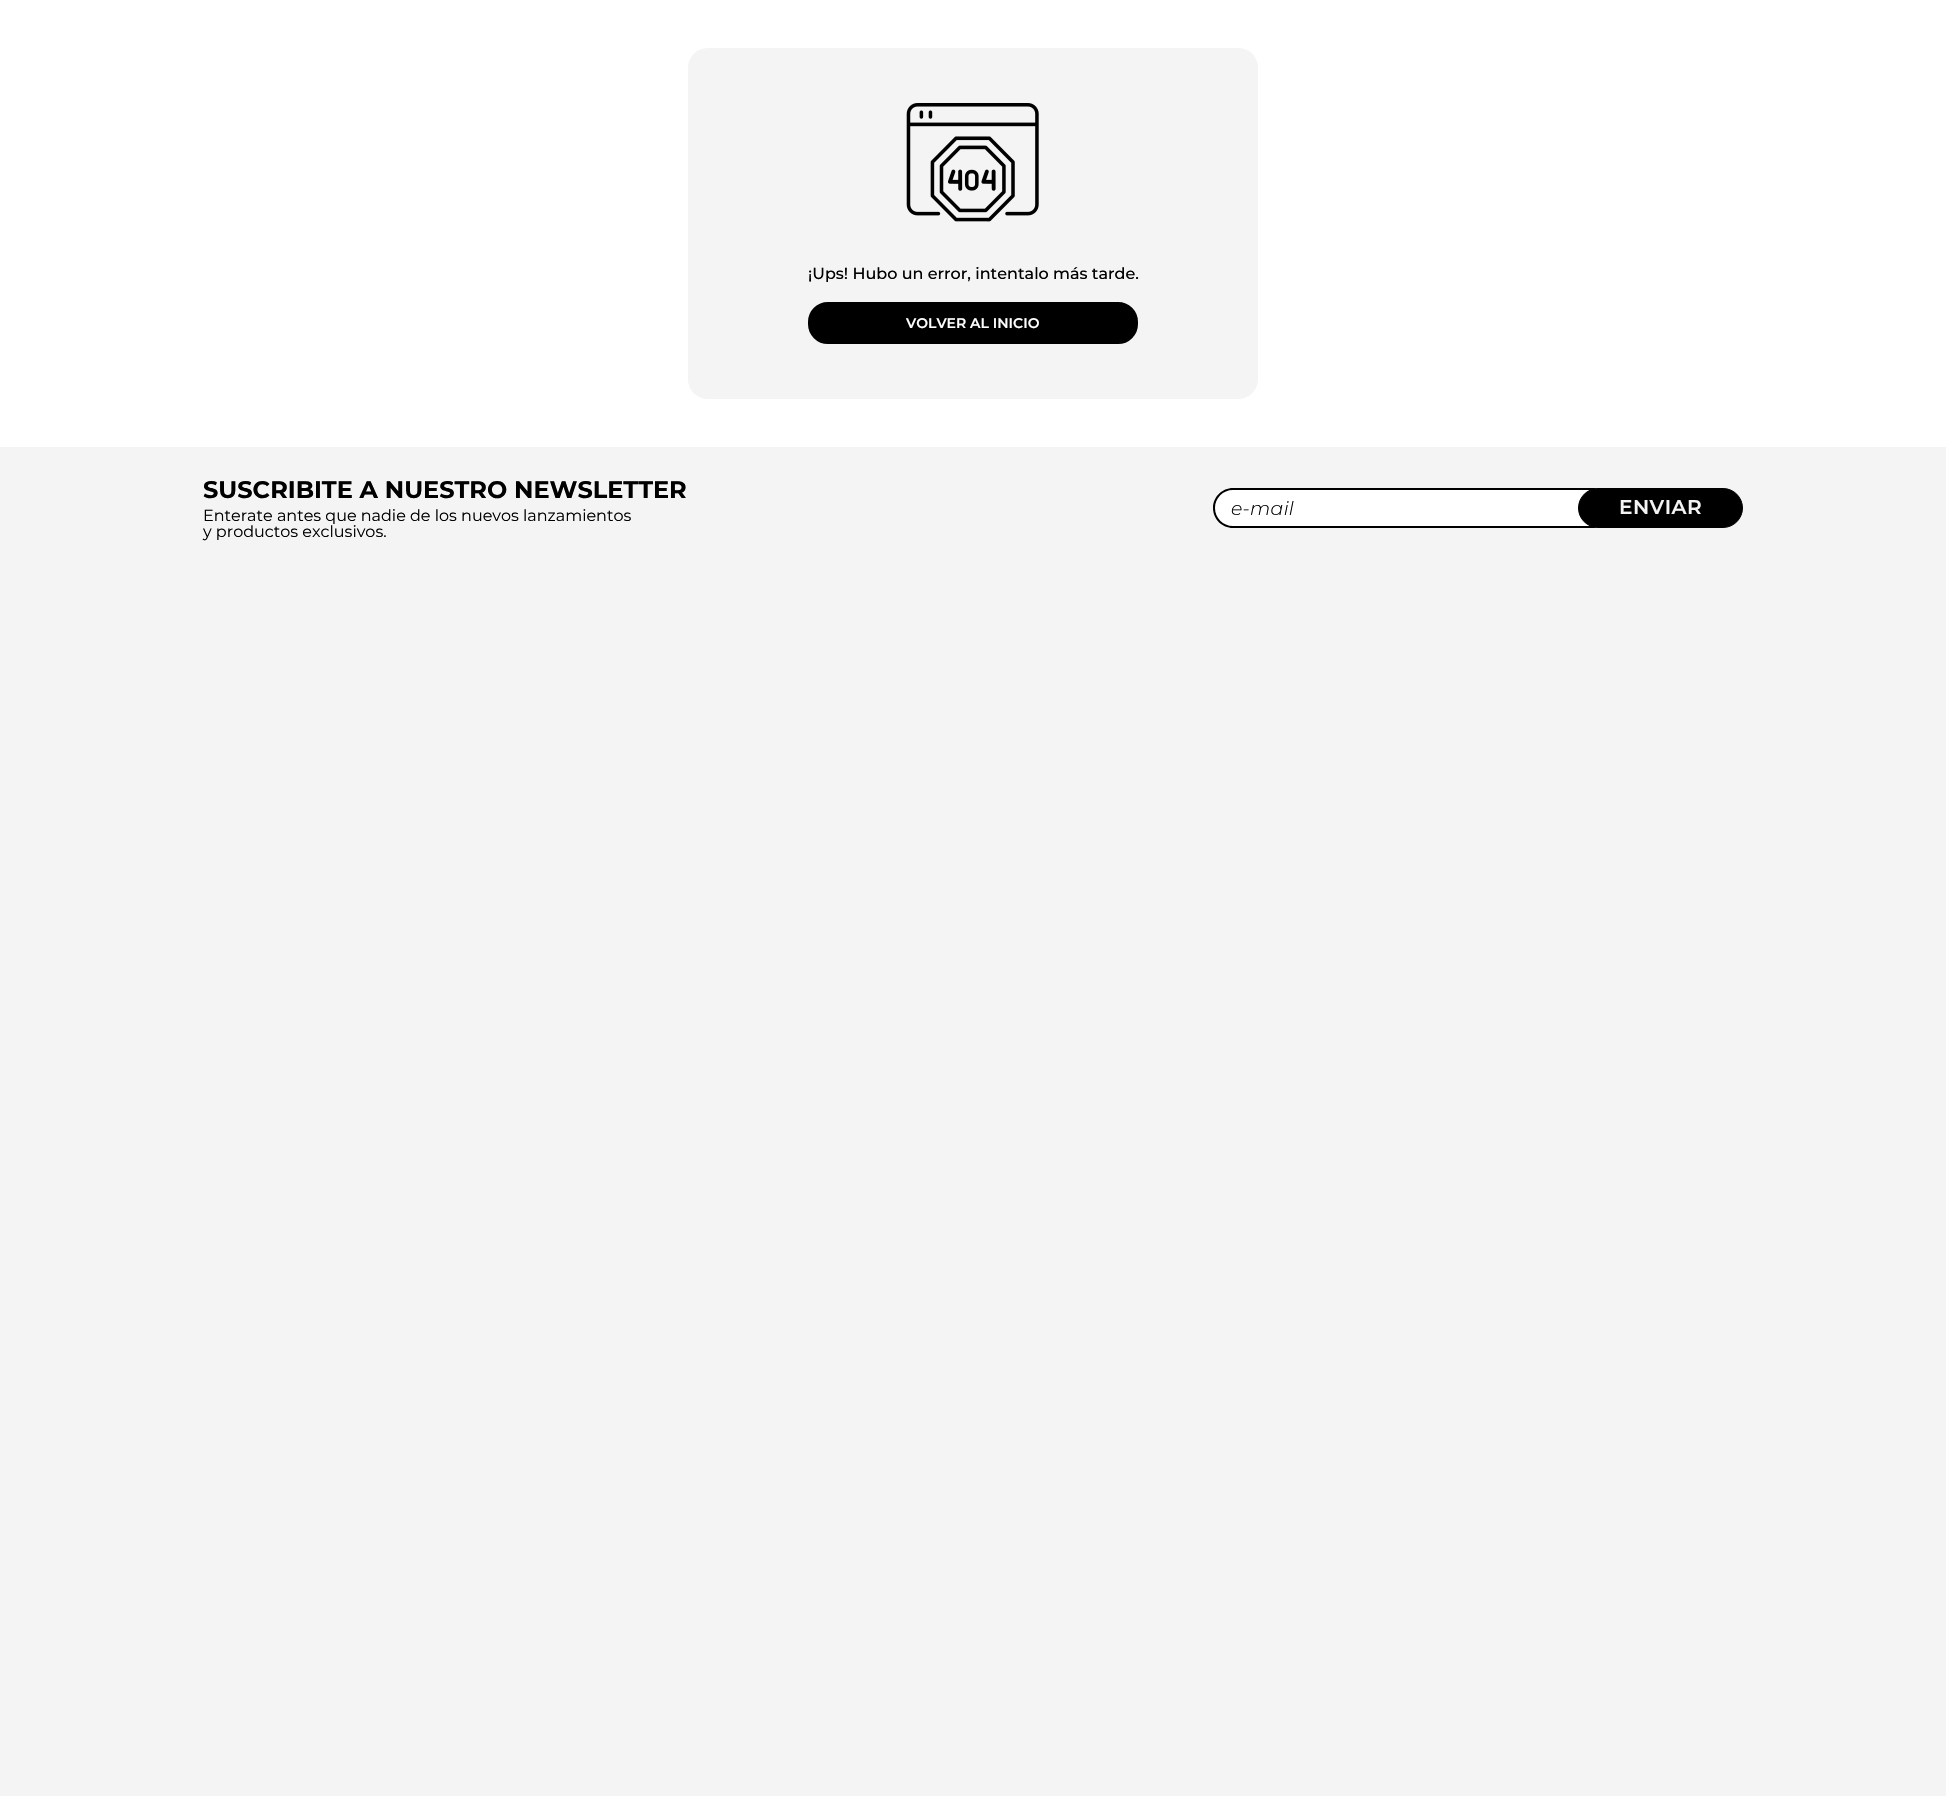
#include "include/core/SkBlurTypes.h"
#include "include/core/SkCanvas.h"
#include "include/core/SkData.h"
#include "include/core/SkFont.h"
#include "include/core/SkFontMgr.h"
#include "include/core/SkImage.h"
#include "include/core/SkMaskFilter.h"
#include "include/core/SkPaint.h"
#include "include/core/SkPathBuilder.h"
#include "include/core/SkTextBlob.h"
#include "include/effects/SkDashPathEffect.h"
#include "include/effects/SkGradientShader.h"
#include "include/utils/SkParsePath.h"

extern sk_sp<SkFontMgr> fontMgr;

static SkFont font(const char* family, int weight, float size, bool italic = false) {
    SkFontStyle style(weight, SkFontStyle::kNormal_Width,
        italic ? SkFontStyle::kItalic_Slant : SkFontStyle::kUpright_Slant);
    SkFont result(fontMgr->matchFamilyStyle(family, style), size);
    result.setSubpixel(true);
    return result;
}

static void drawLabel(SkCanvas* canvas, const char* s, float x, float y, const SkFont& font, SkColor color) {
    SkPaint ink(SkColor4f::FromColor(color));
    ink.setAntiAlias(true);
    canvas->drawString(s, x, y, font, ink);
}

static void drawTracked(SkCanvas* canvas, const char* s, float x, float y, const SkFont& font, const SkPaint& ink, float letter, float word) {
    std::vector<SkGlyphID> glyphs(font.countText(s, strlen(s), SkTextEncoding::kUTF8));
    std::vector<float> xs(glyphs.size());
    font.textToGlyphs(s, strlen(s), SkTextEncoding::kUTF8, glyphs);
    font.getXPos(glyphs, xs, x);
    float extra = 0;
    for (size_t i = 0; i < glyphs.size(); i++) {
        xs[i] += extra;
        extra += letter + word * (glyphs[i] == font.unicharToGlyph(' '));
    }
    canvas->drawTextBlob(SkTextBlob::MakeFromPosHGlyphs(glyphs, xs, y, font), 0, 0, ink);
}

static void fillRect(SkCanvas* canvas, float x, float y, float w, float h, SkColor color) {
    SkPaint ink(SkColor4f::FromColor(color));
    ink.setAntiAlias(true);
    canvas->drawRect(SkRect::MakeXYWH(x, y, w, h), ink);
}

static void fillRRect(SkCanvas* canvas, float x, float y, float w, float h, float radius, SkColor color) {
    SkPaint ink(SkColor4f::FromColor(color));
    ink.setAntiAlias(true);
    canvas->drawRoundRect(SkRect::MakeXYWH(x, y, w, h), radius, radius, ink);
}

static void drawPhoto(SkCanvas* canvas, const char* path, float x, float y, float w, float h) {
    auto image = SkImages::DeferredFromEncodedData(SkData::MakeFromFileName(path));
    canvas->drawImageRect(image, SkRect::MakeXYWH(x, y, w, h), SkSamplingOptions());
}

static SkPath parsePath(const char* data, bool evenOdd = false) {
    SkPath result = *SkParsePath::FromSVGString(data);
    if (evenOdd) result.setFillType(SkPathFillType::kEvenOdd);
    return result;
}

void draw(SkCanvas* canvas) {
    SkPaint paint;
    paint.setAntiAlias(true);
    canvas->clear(0xFFF4F4F4);
    fillRect(canvas, 0, 0, 1946, 447, 0xFFFFFFFF);
    fillRRect(canvas, 688, 48, 570, 351, 20, 0xFFF4F4F4);
    drawPhoto(canvas, "assets/img1.png", 906, 103, 133, 119);
    SkFont font1 = font("Montserrat", 500, 16);
    drawLabel(canvas, "¡Ups! Hubo un error, intentalo más tarde.", 808, 279, font1, 0xFF000000);
    paint.setColor(0xFF000000);
    canvas->drawRoundRect(SkRect::MakeXYWH(809, 303, 328, 40), 19, 19, paint);
    paint.setStroke(true);
    paint.setStrokeWidth(2);
    canvas->drawRoundRect(SkRect::MakeXYWH(809, 303, 328, 40), 19, 19, paint);
    SkFont font2 = font("Montserrat", 600, 14);
    drawLabel(canvas, "VOLVER AL INICIO", 906, 328, font2, 0xFFFFFFFF);
    SkFont font3 = font("Montserrat", 700, 24);
    drawLabel(canvas, "SUSCRIBITE A NUESTRO NEWSLETTER", 203, 498, font3, 0xFF000000);
    SkFont font4 = font("Montserrat", 400, 16);
    drawLabel(canvas, "Enterate antes que nadie de los nuevos lanzamientos", 203, 521, font4, 0xFF000000);
    drawLabel(canvas, "y productos exclusivos.", 203, 537, font4, 0xFF000000);
    canvas->save();
    canvas->clipPath(parsePath("M1217 488H1594C1596 488 1598 490 1598 492V524C1598 526 1596 528 1594 528H1217C1215 528 1213 526 1213 524V492C1213 490 1215 488 1217 488Z"), true);
    paint.setStroke(false);
    paint.setColor(0xFFFFFFFF);
    canvas->drawPath(parsePath("M1233 488H1594C1596 488 1598 490 1598 492V524C1598 526 1596 528 1594 528H1233C1222 528 1213 519 1213 508C1213 497 1222 488 1233 488Z"), paint);
    canvas->restore();
    paint.setColor(0xFF000000);
    canvas->drawPath(parsePath("M1233 488C1222 488 1213 497 1213 508C1213 519 1222 528 1233 528H1594C1596 528 1598 526 1598 524V492C1598 490 1596 488 1594 488ZM1233 490C1223 490 1215 498 1215 508C1215 518 1223 526 1233 526H1596V490Z", true), paint);
    SkFont font5 = font("Montserrat", 300, 19, true);
    drawTracked(canvas, "e-mail", 1231, 515, font5, paint, 0.25f, 0);
    canvas->drawRoundRect(SkRect::MakeXYWH(1578.5f, 488.5f, 164, 39), 19.5f, 19.5f, paint);
    paint.setStroke(true);
    paint.setStrokeWidth(1);
    canvas->drawRoundRect(SkRect::MakeXYWH(1578.5f, 488.5f, 164, 39), 19.5f, 19.5f, paint);
    SkFont font6 = font("Montserrat", 600, 20);
    paint.setStroke(false);
    paint.setColor(0xFFF4F4F4);
    drawTracked(canvas, "ENVIAR", 1619, 514, font6, paint, 0.5f, 0);
}
